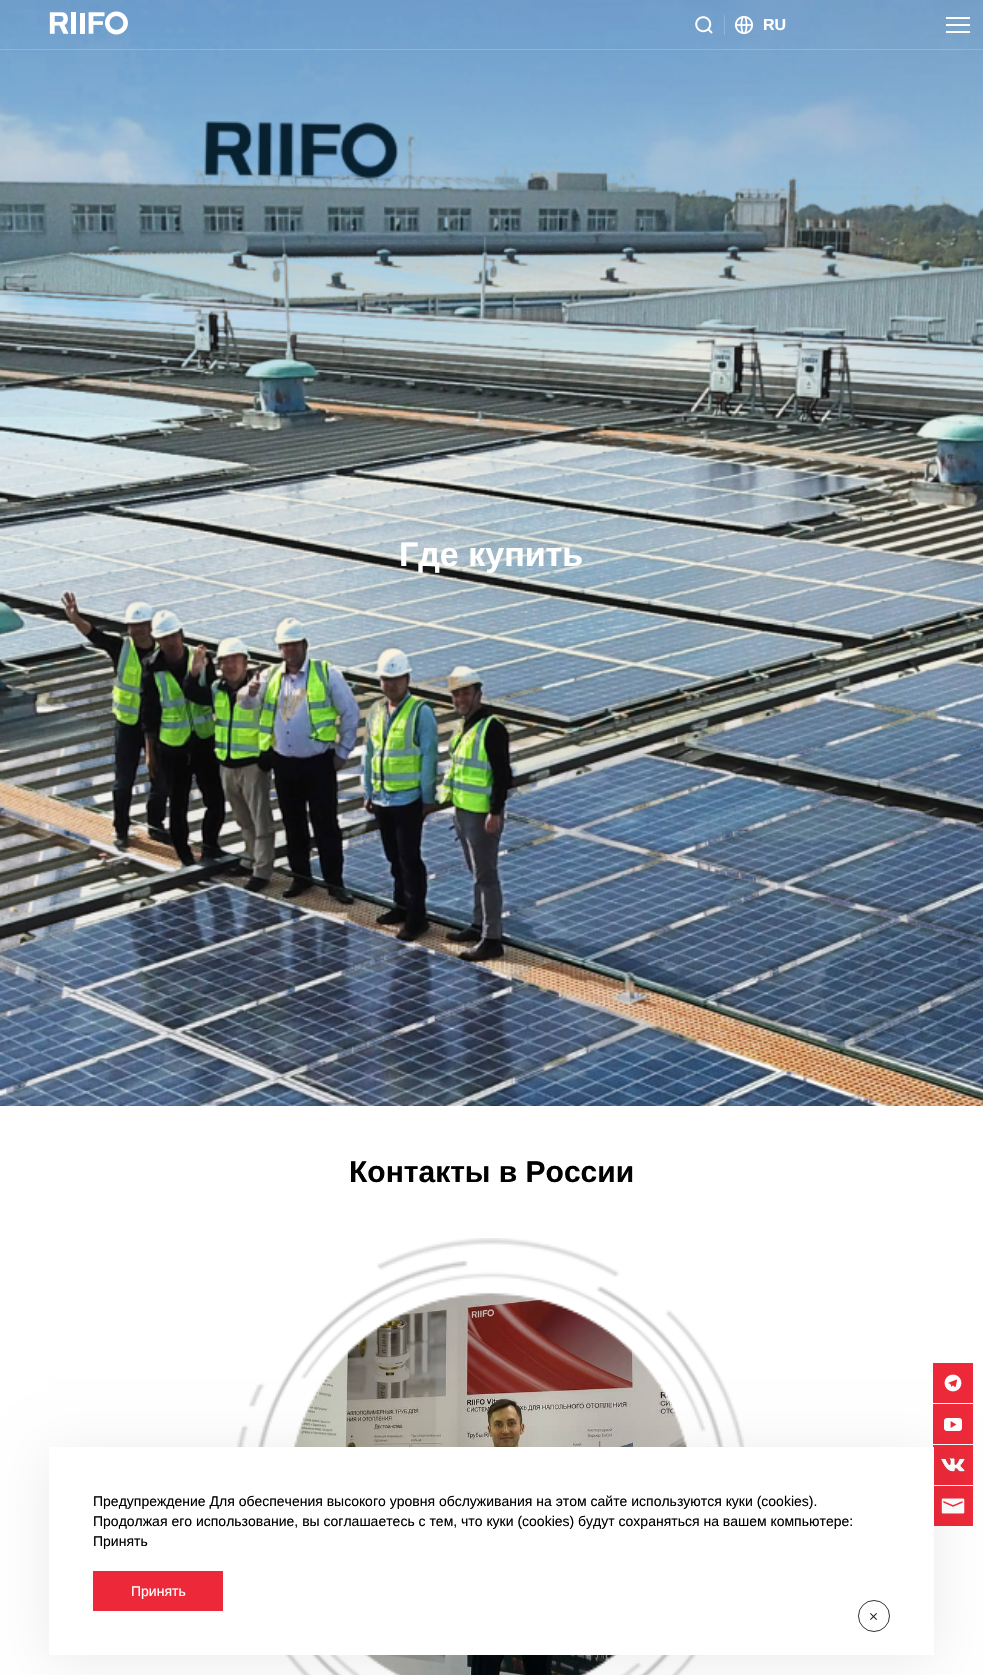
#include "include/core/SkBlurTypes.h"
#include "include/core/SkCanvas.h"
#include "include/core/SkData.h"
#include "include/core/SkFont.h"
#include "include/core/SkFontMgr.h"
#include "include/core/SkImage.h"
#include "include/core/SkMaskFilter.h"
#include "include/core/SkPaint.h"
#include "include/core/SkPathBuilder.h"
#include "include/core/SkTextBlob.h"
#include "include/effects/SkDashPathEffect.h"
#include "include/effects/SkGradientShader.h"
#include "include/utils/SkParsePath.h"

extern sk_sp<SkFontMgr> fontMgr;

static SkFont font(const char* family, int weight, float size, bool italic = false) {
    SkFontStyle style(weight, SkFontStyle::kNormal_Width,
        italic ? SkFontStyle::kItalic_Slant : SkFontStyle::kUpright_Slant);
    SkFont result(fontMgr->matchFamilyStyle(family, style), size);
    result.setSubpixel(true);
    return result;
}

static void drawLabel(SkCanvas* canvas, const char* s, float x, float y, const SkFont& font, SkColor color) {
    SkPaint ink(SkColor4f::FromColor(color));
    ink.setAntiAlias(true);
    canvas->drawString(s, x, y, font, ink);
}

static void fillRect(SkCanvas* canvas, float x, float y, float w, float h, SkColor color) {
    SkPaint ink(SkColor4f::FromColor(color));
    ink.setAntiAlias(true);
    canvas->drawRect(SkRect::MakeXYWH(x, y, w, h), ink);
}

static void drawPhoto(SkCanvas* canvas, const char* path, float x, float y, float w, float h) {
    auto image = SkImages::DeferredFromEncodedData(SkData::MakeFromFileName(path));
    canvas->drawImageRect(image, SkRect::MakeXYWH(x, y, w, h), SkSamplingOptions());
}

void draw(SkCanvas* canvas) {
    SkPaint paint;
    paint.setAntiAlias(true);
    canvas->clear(0xFFFFFFFF);
    drawPhoto(canvas, "assets/img4.png", 0, 0, 983, 1106);
    drawPhoto(canvas, "assets/img5.png", 0, 0, 983, 417);
    drawPhoto(canvas, "assets/img1.png", 49, 11, 79, 24);
    drawPhoto(canvas, "assets/img2.png", 695, 16, 18, 18);
    fillRect(canvas, 724, 15, 1, 20, 0xFF8FB4D7);
    drawPhoto(canvas, "assets/img3.png", 735, 16, 18, 18);
    SkFont font1 = font("Liberation Sans", 700, 16);
    drawLabel(canvas, "RU", 763, 30, font1, 0xFFFFFFFF);
    fillRect(canvas, 946, 24, 24, 2, 0xFFFFFFFF);
    fillRect(canvas, 946, 17, 24, 2, 0xFFFFFFFF);
    fillRect(canvas, 946, 31, 24, 2, 0xFFFFFFFF);
    fillRect(canvas, 0, 49, 983, 1, 0x33FFFFFF);
    SkFont font2 = font("Liberation Sans", 700, 34);
    drawLabel(canvas, "Где купить", 399, 566, font2, 0xFFFFFFFF);
    SkFont font3 = font("Liberation Sans", 700, 30);
    drawLabel(canvas, "Контакты в России", 349, 1182, font3, 0xFF000000);
    drawPhoto(canvas, "assets/img7.png", 292, 1292, 397, 383);
    drawPhoto(canvas, "assets/img6.png", 233, 1238, 517, 437);
    fillRect(canvas, 933, 1363, 40, 40, 0xFFED2939);
    drawPhoto(canvas, "assets/img8.png", 944, 1374, 18, 18);
    fillRect(canvas, 933, 1404, 40, 40, 0xFFED2939);
    drawPhoto(canvas, "assets/img9.png", 944, 1418, 18, 13);
    fillRect(canvas, 933, 1445, 40, 40, 0xFFED2939);
    drawPhoto(canvas, "assets/img10.png", 941, 1458, 24, 14);
    fillRect(canvas, 934, 1486, 39, 40, 0xFFED2939);
    drawPhoto(canvas, "assets/img11.png", 941, 1498, 24, 16);
    paint.setColor(0x14000000);
    paint.setMaskFilter(SkMaskFilter::MakeBlur(kNormal_SkBlurStyle, 25));
    canvas->drawRect(SkRect::MakeXYWH(49, 1453, 885, 208), paint);
    paint.setMaskFilter(nullptr);
    fillRect(canvas, 49, 1447, 885, 208, 0xFFFFFFFF);
    SkFont font4 = font("Liberation Sans", 400, 14);
    drawLabel(canvas, "Предупреждение Для обеспечения высокого уровня обслуживания на этом сайте используются куки (cookies).", 93, 1506, font4, 0xFF000000);
    drawLabel(canvas, "Продолжая его использование, вы соглашаетесь с тем, что куки (cookies) будут сохраняться на вашем компьютере:", 93, 1526, font4, 0xFF000000);
    drawLabel(canvas, "Принять", 93, 1546, font4, 0xFF000000);
    fillRect(canvas, 93, 1571, 130, 40, 0xFFED2939);
    drawLabel(canvas, "Принять", 131, 1596, font4, 0xFFFFFFFF);
    drawPhoto(canvas, "assets/img12.png", 870, 1613, 7, 7);
    paint.setStroke(true);
    paint.setStrokeWidth(1);
    paint.setColor(0xFF333333);
    canvas->drawCircle(874, 1616, 15.5f, paint);
}
